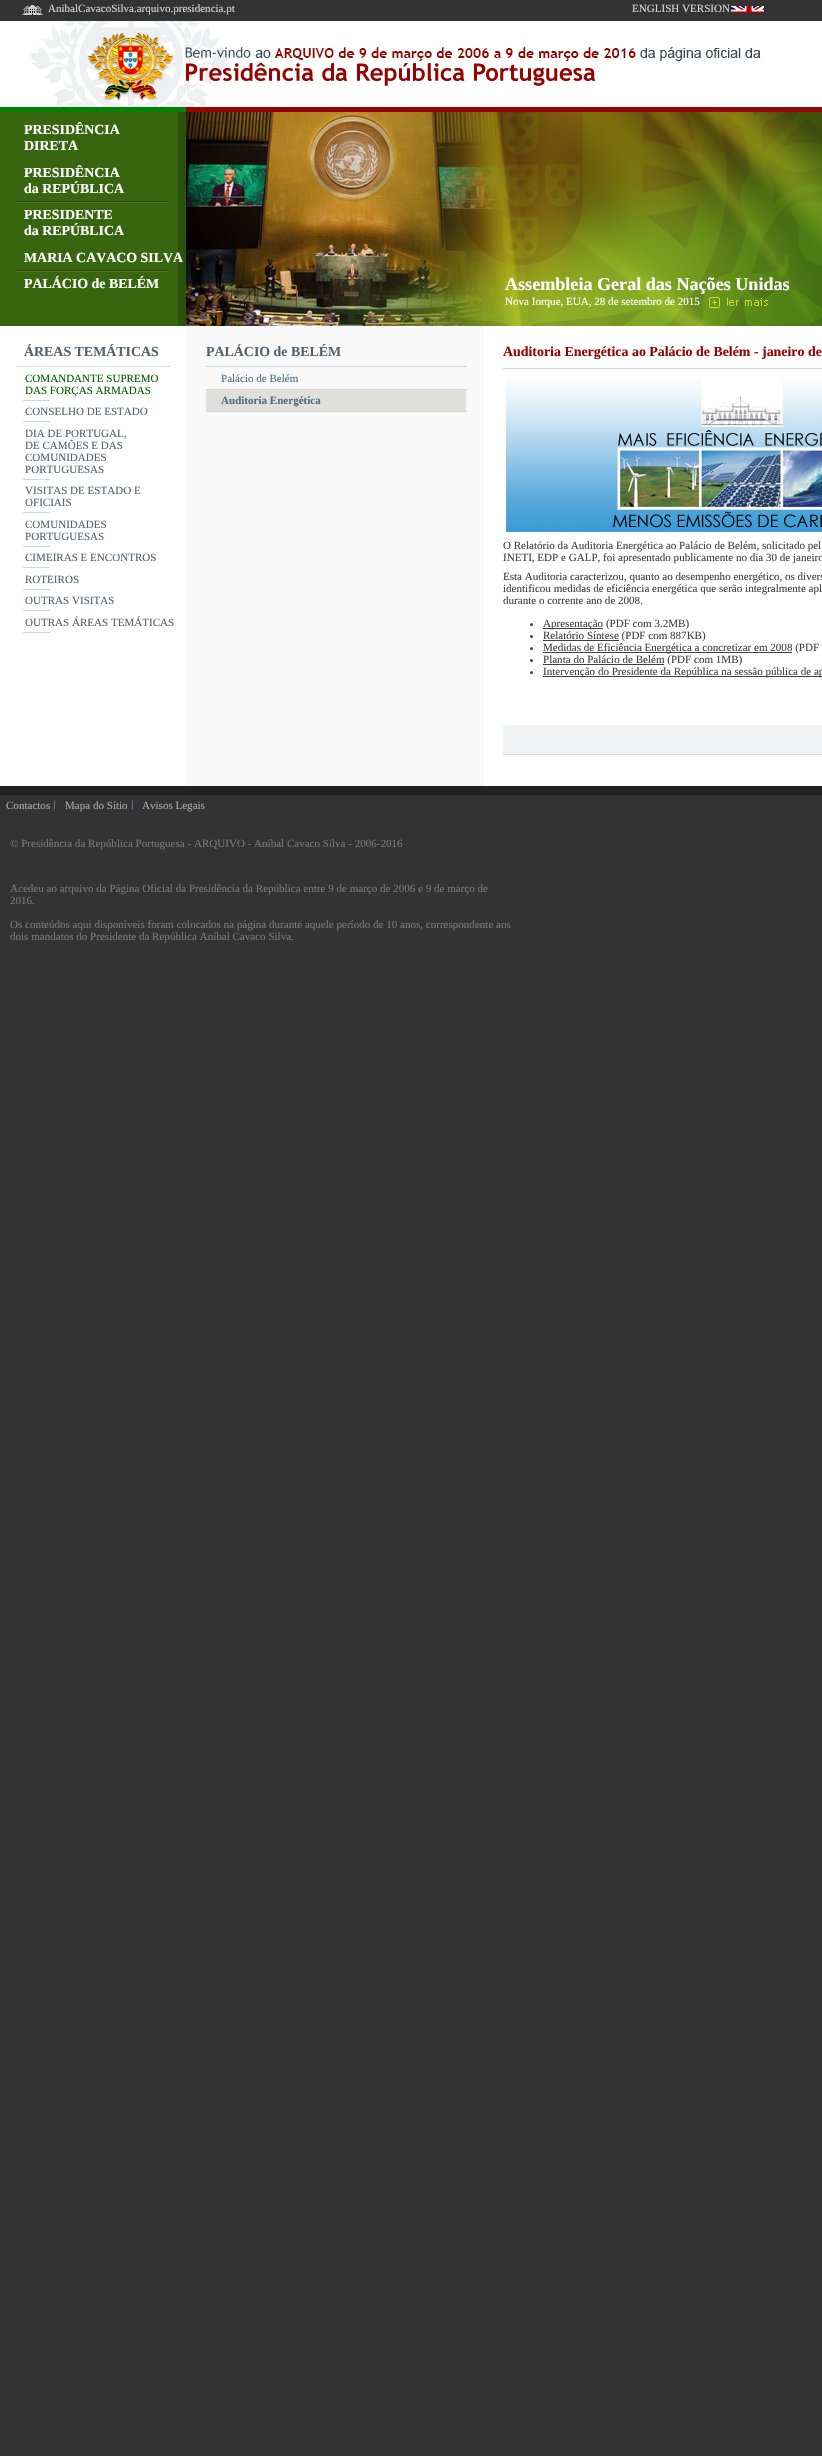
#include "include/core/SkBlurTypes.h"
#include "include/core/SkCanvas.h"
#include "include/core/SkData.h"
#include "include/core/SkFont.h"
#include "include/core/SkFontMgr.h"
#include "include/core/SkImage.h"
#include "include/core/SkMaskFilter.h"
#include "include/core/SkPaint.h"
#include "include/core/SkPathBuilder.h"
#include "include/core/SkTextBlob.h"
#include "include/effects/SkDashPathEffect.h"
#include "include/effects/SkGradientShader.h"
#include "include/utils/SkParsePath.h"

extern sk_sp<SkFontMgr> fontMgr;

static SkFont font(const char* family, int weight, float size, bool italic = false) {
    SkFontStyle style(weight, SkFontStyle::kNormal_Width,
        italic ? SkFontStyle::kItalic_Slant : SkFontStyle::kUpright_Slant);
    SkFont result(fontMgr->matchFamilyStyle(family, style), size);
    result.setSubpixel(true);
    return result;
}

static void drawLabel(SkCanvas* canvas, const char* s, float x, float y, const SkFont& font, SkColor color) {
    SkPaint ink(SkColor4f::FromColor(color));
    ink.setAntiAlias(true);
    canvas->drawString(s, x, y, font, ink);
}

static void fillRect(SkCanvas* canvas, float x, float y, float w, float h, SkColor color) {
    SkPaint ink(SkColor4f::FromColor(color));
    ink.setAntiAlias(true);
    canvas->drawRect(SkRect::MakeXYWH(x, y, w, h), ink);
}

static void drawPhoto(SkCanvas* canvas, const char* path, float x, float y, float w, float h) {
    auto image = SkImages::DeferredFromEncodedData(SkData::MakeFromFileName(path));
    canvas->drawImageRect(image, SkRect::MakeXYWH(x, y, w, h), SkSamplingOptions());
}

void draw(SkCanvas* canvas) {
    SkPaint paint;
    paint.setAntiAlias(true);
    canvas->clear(0xFF333333);
    drawPhoto(canvas, "assets/img1.png", 22, 5, 21, 10);
    SkFont font1 = font("Liberation Serif", 400, 11.05f);
    drawLabel(canvas, "AnibalCavacoSilva.arquivo.presidencia.pt", 48, 12, font1, 0xFFD8D8D8);
    drawLabel(canvas, "ENGLISH VERSION", 632, 12, font1, 0xFFD8D8D8);
    drawPhoto(canvas, "assets/img2.png", 731, 6, 33, 7);
    drawPhoto(canvas, "assets/img3.png", 761, 21, 61, 91);
    drawPhoto(canvas, "assets/img4.png", 0, 21, 761, 91);
    fillRect(canvas, 0, 112, 541, 214, 0xFF386610);
    fillRect(canvas, 178, 112, 8, 214, 0xFF2C510C);
    SkFont font2 = font("Liberation Serif", 700, 13.9f);
    drawLabel(canvas, "PRESIDÊNCIA", 24, 134, font2, 0xFFFFFFFF);
    drawLabel(canvas, "DIRETA", 24, 150, font2, 0xFFFFFFFF);
    fillRect(canvas, 15, 159, 154, 1, 0xFF455E10);
    drawLabel(canvas, "PRESIDÊNCIA", 24, 177, font2, 0xFFFFFFFF);
    drawLabel(canvas, "da REPÚBLICA", 24, 193, font2, 0xFFFFFFFF);
    drawPhoto(canvas, "assets/img5.png", 15, 201, 154, 2);
    drawLabel(canvas, "PRESIDENTE", 24, 219, font2, 0xFFFFFFFF);
    drawLabel(canvas, "da REPÚBLICA", 24, 235, font2, 0xFFFFFFFF);
    fillRect(canvas, 15, 244, 154, 1, 0xFF455E10);
    drawLabel(canvas, "MARIA CAVACO SILVA", 24, 262, font2, 0xFFFFFFFF);
    drawPhoto(canvas, "assets/img5.png", 15, 270, 154, 2);
    drawLabel(canvas, "PALÁCIO de BELÉM", 24, 288, font2, 0xFFFFFFFF);
    drawPhoto(canvas, "assets/img6.png", 186, 112, 335, 214);
    drawPhoto(canvas, "assets/img7.png", 186, 112, 636, 214);
    SkFont font3 = font("Liberation Serif", 700, 18.1f);
    drawLabel(canvas, "Assembleia Geral das Nações Unidas", 505, 290, font3, 0xFFFFFFFF);
    drawLabel(canvas, "Nova Iorque, EUA, 28 de setembro de 2015", 505, 305, font1, 0xFFFFFFFF);
    drawPhoto(canvas, "assets/img8.png", 709, 297, 59, 11);
    fillRect(canvas, 0, 326, 185, 460, 0xFFFFFFFF);
    fillRect(canvas, 185, 326, 299, 460, 0xFFF9F9F9);
    drawLabel(canvas, "ÁREAS TEMÁTICAS", 24, 356, font2, 0xFF55636D);
    fillRect(canvas, 16, 366, 154, 1, 0xFFD4D8DA);
    drawLabel(canvas, "COMANDANTE SUPREMO", 25, 382, font1, 0xFF055D07);
    drawLabel(canvas, "DAS FORÇAS ARMADAS", 25, 394, font1, 0xFF055D07);
    fillRect(canvas, 23, 400, 27, 1, 0xFFD4D8DA);
    drawLabel(canvas, "CONSELHO DE ESTADO", 25, 415, font1, 0xFF55636D);
    fillRect(canvas, 23, 421, 27, 1, 0xFFD4D8DA);
    drawLabel(canvas, "DIA DE PORTUGAL,", 25, 437, font1, 0xFF55636D);
    drawLabel(canvas, "DE CAMÕES E DAS", 25, 449, font1, 0xFF55636D);
    drawLabel(canvas, "COMUNIDADES", 25, 461, font1, 0xFF55636D);
    drawLabel(canvas, "PORTUGUESAS", 25, 473, font1, 0xFF55636D);
    fillRect(canvas, 23, 479, 27, 1, 0xFFD4D8DA);
    drawLabel(canvas, "VISITAS DE ESTADO E", 25, 494, font1, 0xFF55636D);
    drawLabel(canvas, "OFICIAIS", 25, 506, font1, 0xFF55636D);
    fillRect(canvas, 23, 512, 27, 1, 0xFFD4D8DA);
    drawLabel(canvas, "COMUNIDADES", 25, 528, font1, 0xFF55636D);
    drawLabel(canvas, "PORTUGUESAS", 25, 540, font1, 0xFF55636D);
    fillRect(canvas, 23, 546, 27, 1, 0xFFD4D8DA);
    drawLabel(canvas, "CIMEIRAS E ENCONTROS", 25, 561, font1, 0xFF55636D);
    fillRect(canvas, 23, 567, 27, 1, 0xFFD4D8DA);
    drawLabel(canvas, "ROTEIROS", 25, 583, font1, 0xFF55636D);
    fillRect(canvas, 23, 589, 27, 1, 0xFFD4D8DA);
    drawLabel(canvas, "OUTRAS VISITAS", 25, 604, font1, 0xFF55636D);
    fillRect(canvas, 23, 610, 27, 1, 0xFFD4D8DA);
    drawLabel(canvas, "OUTRAS ÁREAS TEMÁTICAS", 25, 626, font1, 0xFF55636D);
    fillRect(canvas, 23, 632, 27, 1, 0xFFD4D8DA);
    drawLabel(canvas, "PALÁCIO de BELÉM", 206, 356, font2, 0xFF55636D);
    fillRect(canvas, 206, 366, 261, 1, 0xFFD4D8DA);
    drawLabel(canvas, "Palácio de Belém", 221, 382, font1, 0xFF4B6B83);
    fillRect(canvas, 206, 389, 261, 1, 0xFFD4D8DA);
    fillRect(canvas, 206, 390, 260, 21, 0xFFE1DFDC);
    SkFont font4 = font("Liberation Serif", 700, 11.05f);
    drawLabel(canvas, "Auditoria Energética", 221, 404, font4, 0xFF4B6B83);
    fillRect(canvas, 206, 411, 261, 1, 0xFFD4D8DA);
    fillRect(canvas, 484, 326, 338, 460, 0xFFFFFFFF);
    drawLabel(canvas, "Auditoria Energética ao Palácio de Belém - janeiro de", 503, 356, font2, 0xFF950400);
    fillRect(canvas, 503, 368, 319, 1, 0xFFD4D8DA);
    drawPhoto(canvas, "assets/img9.png", 506, 379, 316, 153);
    drawLabel(canvas, "O Relatório da Auditoria Energética ao Palácio de Belém, solicitado pel", 503, 549, font1, 0xFF414141);
    drawLabel(canvas, "INETI, EDP e GALP, foi apresentado publicamente no dia 30 de janeiro", 503, 561, font1, 0xFF414141);
    drawLabel(canvas, "Esta Auditoria caracterizou, quanto ao desempenho energético, os divers", 503, 580, font1, 0xFF414141);
    drawLabel(canvas, "identificou medidas de eficiência energética que serão integralmente apl", 503, 592, font1, 0xFF414141);
    drawLabel(canvas, "durante o corrente ano de 2008.", 503, 604, font1, 0xFF414141);
    paint.setColor(0xFF414141);
    canvas->drawCircle(531.5f, 624.5f, 1.5f, paint);
    fillRect(canvas, 543, 628, 60, 1, 0xFF414141);
    drawLabel(canvas, "Apresentação (PDF com 3.2MB)", 543, 627, font1, 0xFF414141);
    canvas->drawCircle(531.5f, 636.5f, 1.5f, paint);
    fillRect(canvas, 543, 640, 76, 1, 0xFF414141);
    drawLabel(canvas, "Relatório Síntese (PDF com 887KB)", 543, 639, font1, 0xFF414141);
    canvas->drawCircle(531.5f, 648.5f, 1.5f, paint);
    fillRect(canvas, 543, 652, 249, 1, 0xFF414141);
    drawLabel(canvas, "Medidas de Eficiência Energética a concretizar em 2008 (PDF", 543, 651, font1, 0xFF414141);
    canvas->drawCircle(531.5f, 660.5f, 1.5f, paint);
    fillRect(canvas, 543, 664, 121, 1, 0xFF414141);
    drawLabel(canvas, "Planta do Palácio de Belém (PDF com 1MB)", 543, 663, font1, 0xFF414141);
    canvas->drawCircle(531.5f, 672.5f, 1.5f, paint);
    fillRect(canvas, 543, 676, 279, 1, 0xFF414141);
    drawLabel(canvas, "Intervenção do Presidente da República na sessão pública de ap", 543, 675, font1, 0xFF414141);
    fillRect(canvas, 503, 725, 319, 29, 0xFFF2F3F5);
    fillRect(canvas, 503, 754, 319, 1, 0xFFD4D8DB);
    fillRect(canvas, 0, 786, 822, 9, 0xFF212121);
    drawLabel(canvas, "Contactos", 6, 809, font1, 0xFFA9A8A6);
    drawPhoto(canvas, "assets/img10.png", 54, 800, 1, 10);
    drawLabel(canvas, "Mapa do Sítio", 65, 809, font1, 0xFFA9A8A6);
    drawPhoto(canvas, "assets/img10.png", 132, 800, 1, 10);
    drawLabel(canvas, "Avisos Legais", 142, 809, font1, 0xFFA9A8A6);
    drawLabel(canvas, "© Presidência da República Portuguesa - ARQUIVO - Aníbal Cavaco Silva - 2006-2016", 10, 847, font1, 0xFF7A7978);
    drawLabel(canvas, "Acedeu ao arquivo da Página Oficial da Presidência da República entre 9 de março de 2006 e 9 de março de", 10, 892, font1, 0xFF7A7978);
    drawLabel(canvas, "2016.", 10, 904, font1, 0xFF7A7978);
    drawLabel(canvas, "Os conteúdos aqui disponíveis foram colocados na página durante aquele período de 10 anos, correspondente aos", 10, 928, font1, 0xFF7A7978);
    drawLabel(canvas, "dois mandatos do Presidente da República Aníbal Cavaco Silva.", 10, 940, font1, 0xFF7A7978);
}
